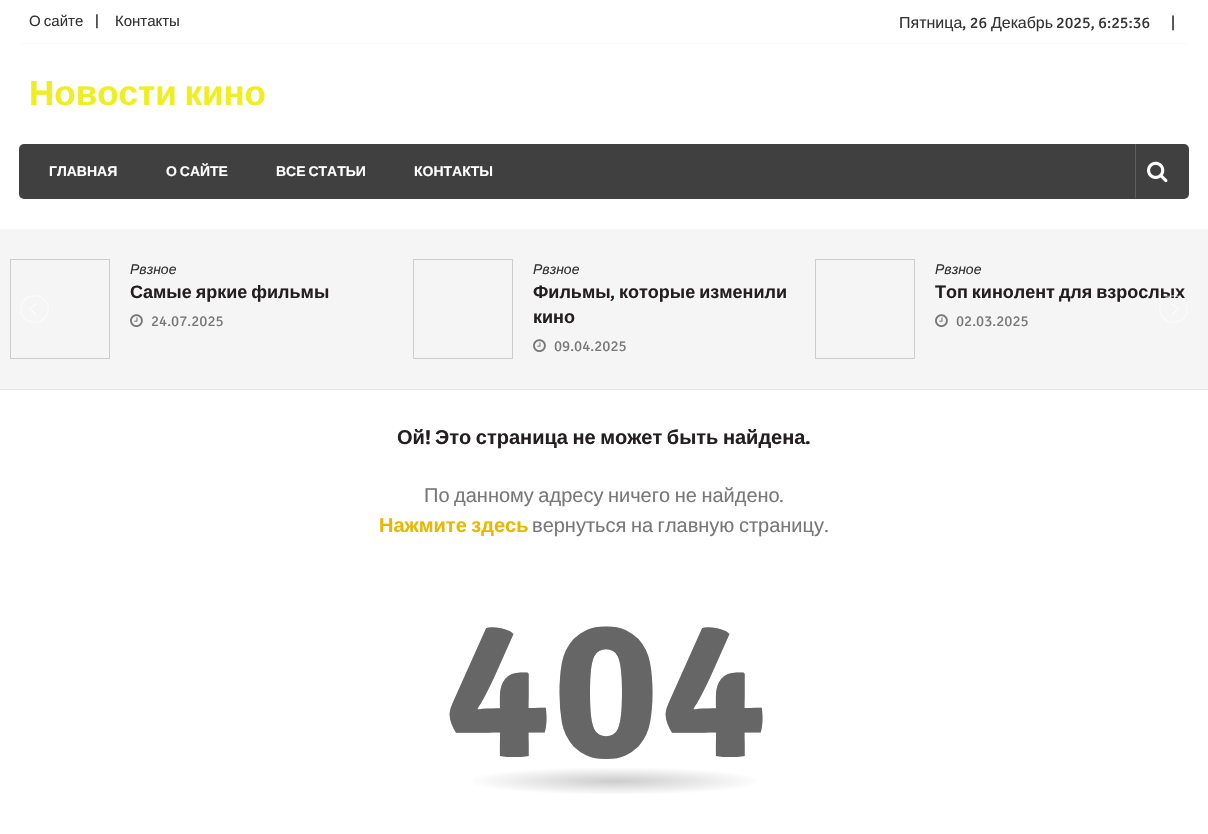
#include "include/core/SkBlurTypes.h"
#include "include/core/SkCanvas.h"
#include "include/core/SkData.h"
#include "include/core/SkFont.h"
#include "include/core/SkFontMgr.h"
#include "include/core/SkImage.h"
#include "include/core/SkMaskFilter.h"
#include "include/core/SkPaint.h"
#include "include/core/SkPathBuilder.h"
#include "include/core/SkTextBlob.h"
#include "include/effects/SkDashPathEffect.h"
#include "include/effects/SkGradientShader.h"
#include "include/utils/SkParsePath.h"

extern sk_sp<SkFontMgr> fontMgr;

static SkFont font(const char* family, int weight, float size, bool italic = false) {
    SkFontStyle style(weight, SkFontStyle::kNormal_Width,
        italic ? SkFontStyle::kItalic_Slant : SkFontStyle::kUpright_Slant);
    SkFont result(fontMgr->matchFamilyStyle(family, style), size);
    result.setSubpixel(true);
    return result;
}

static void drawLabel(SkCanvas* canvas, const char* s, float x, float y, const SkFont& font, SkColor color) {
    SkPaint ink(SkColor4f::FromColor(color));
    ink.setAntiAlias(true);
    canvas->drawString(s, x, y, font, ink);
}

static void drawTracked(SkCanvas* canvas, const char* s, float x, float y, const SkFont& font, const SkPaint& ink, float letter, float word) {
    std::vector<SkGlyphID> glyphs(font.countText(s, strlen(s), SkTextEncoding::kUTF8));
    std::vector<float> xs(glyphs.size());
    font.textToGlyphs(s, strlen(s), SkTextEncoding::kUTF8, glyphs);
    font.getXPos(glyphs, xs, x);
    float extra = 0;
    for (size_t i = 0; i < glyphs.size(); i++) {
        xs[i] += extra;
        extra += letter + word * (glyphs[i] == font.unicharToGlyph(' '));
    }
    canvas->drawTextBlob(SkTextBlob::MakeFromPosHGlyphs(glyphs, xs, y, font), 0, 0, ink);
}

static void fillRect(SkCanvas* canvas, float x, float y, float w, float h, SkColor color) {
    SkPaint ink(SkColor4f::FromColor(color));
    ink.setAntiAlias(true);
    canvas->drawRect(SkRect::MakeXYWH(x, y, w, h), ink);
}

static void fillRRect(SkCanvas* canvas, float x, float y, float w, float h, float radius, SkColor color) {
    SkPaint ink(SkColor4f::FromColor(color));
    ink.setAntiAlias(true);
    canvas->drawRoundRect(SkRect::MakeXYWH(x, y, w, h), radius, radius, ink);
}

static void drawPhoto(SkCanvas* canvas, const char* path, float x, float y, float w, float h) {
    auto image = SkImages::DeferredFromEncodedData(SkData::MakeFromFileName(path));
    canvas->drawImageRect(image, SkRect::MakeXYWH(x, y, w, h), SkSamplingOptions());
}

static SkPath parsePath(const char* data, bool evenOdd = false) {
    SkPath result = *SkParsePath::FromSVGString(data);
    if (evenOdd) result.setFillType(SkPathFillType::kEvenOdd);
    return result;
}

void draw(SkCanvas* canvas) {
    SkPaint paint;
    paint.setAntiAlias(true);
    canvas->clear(0xFFFFFFFF);
    paint.setStroke(true);
    paint.setStrokeWidth(1);
    paint.setColor(0xFFF7F5F5);
    paint.setPathEffect(SkDashPathEffect::Make({{1, 1}}, 0));
    canvas->drawPath(parsePath("M19 43.5H1189"), paint);
    paint.setPathEffect(nullptr);
    SkFont font1 = font("Liberation Sans", 400, 15);
    paint.setStroke(false);
    paint.setColor(0xFF333333);
    drawTracked(canvas, "О сайте", 29, 26, font1, paint, 0, -1);
    SkFont font2 = font("Signika Negative", 400, 15);
    drawLabel(canvas, "|", 95, 26, font2, 0xFF333333);
    drawLabel(canvas, "Контакты", 115, 26, font1, 0xFF333333);
    SkFont font3 = font("Liberation Sans", 400, 16);
    drawLabel(canvas, "Пятница", 899, 28, font3, 0xFF333333);
    SkFont font4 = font("Signika Negative", 400, 16);
    drawLabel(canvas, ", 26", 962, 28, font4, 0xFF333333);
    drawLabel(canvas, "Декабрь", 991, 28, font3, 0xFF333333);
    drawLabel(canvas, "2025, 6:25:36", 1056, 28, font4, 0xFF333333);
    drawLabel(canvas, "|", 1171, 28, font4, 0xFF333333);
    SkFont font5 = font("Liberation Sans", 700, 35);
    paint.setColor(0xFFEEEE22);
    drawTracked(canvas, "Новости кино", 29, 105, font5, paint, 0, -2);
    fillRRect(canvas, 19, 144, 1170, 55, 5, 0xFF404040);
    SkFont font6 = font("Liberation Sans", 700, 14);
    drawLabel(canvas, "ГЛАВНАЯ", 49, 176, font6, 0xFFFFFFFF);
    paint.setColor(0xFFFFFFFF);
    drawTracked(canvas, "О САЙТЕ", 166, 176, font6, paint, 0, -1);
    drawTracked(canvas, "ВСЕ СТАТЬИ", 276, 176, font6, paint, 0, -1);
    drawLabel(canvas, "КОНТАКТЫ", 414, 176, font6, 0xFFFFFFFF);
    fillRect(canvas, 1135, 144, 1, 54, 0xFF5D5D5D);
    drawPhoto(canvas, "assets/img1.png", 1147, 161, 21, 22);
    fillRect(canvas, 0, 229, 1208, 160, 0xFFF5F5F5);
    fillRect(canvas, 0, 389, 1208, 1, 0xFFE5E5E5);
    paint.setStroke(true);
    paint.setColor(0xFFCCCCCC);
    canvas->drawRect(SkRect::MakeXYWH(10.5f, 259.5f, 99, 99), paint);
    SkFont font7 = font("Liberation Sans", 400, 14, true);
    drawLabel(canvas, "Рвзное", 130, 274, font7, 0xFF333333);
    SkFont font8 = font("Liberation Sans", 700, 18);
    paint.setStroke(false);
    paint.setColor(0xFF231F20);
    drawTracked(canvas, "Самые яркие фильмы", 130, 298, font8, paint, 0, -1);
    drawPhoto(canvas, "assets/img2.png", 130, 314, 13, 14);
    drawLabel(canvas, "24.07.2025", 151, 326, font2, 0xFF777777);
    paint.setStroke(true);
    paint.setColor(0xFFCCCCCC);
    canvas->drawRect(SkRect::MakeXYWH(413.5f, 259.5f, 99, 99), paint);
    drawLabel(canvas, "Рвзное", 533, 274, font7, 0xFF333333);
    drawLabel(canvas, "Фильмы", 533, 298, font8, 0xFF231F20);
    SkFont font9 = font("Signika Negative", 600, 18);
    drawLabel(canvas, ",", 610, 298, font9, 0xFF231F20);
    paint.setStroke(false);
    paint.setColor(0xFF231F20);
    drawTracked(canvas, "которые изменили", 619, 298, font8, paint, 0, -1);
    drawLabel(canvas, "кино", 533, 323, font8, 0xFF231F20);
    drawPhoto(canvas, "assets/img2.png", 533, 339, 13, 14);
    drawLabel(canvas, "09.04.2025", 554, 351, font2, 0xFF777777);
    paint.setStroke(true);
    paint.setColor(0xFFCCCCCC);
    canvas->drawRect(SkRect::MakeXYWH(815.5f, 259.5f, 99, 99), paint);
    drawLabel(canvas, "Рвзное", 935, 274, font7, 0xFF333333);
    paint.setStroke(false);
    paint.setColor(0xFF231F20);
    drawTracked(canvas, "Топ кинолент для взрослых", 935, 298, font8, paint, 0, -1);
    drawPhoto(canvas, "assets/img2.png", 935, 314, 13, 14);
    drawLabel(canvas, "02.03.2025", 956, 326, font2, 0xFF777777);
    drawPhoto(canvas, "assets/img3.png", 20, 295, 29, 28);
    drawPhoto(canvas, "assets/img4.png", 1159, 295, 29, 28);
    SkFont font10 = font("Liberation Sans", 700, 20);
    drawLabel(canvas, "Ой", 397, 444, font10, 0xFF231F20);
    SkFont font11 = font("Signika Negative", 700, 20);
    drawLabel(canvas, "!", 425, 444, font11, 0xFF231F20);
    drawTracked(canvas, "Это страница не может быть найдена", 435, 444, font10, paint, 0, -1);
    drawLabel(canvas, ".", 805, 444, font11, 0xFF231F20);
    SkFont font12 = font("Liberation Sans", 400, 20);
    paint.setColor(0xFF777777);
    drawTracked(canvas, "По данному адресу ничего не найдено", 424, 502, font12, paint, 0, -1);
    SkFont font13 = font("Signika Negative", 300, 20);
    drawLabel(canvas, ".", 779, 502, font13, 0xFF777777);
    paint.setColor(0xFFE8B701);
    drawTracked(canvas, "Нажмите здесь", 379, 532, font10, paint, 0, -1);
    paint.setColor(0xFF777777);
    drawTracked(canvas, "вернуться на главную страницу", 532, 532, font12, paint, 0, -1);
    drawLabel(canvas, ".", 824, 532, font13, 0xFF777777);
    SkFont font14 = font("Signika Negative", 700, 200);
    drawLabel(canvas, "404", 444, 756, font14, 0xFF666666);
    {
        const SkColor colors[] = {0xFFCCCCCC, 0xFFFFFFFF};
        const float stops[] = {0, 0.5f};
        SkMatrix m = SkMatrix::Translate(615, 781).preScale(298, 28);
        paint.setShader(SkGradientShader::MakeRadial({0, 0}, 1, colors, stops, 2, SkTileMode::kClamp, 0, &m));
        paint.setAlpha(255);
    }
    canvas->drawRect(SkRect::MakeXYWH(473, 768, 284, 26), paint);
}
